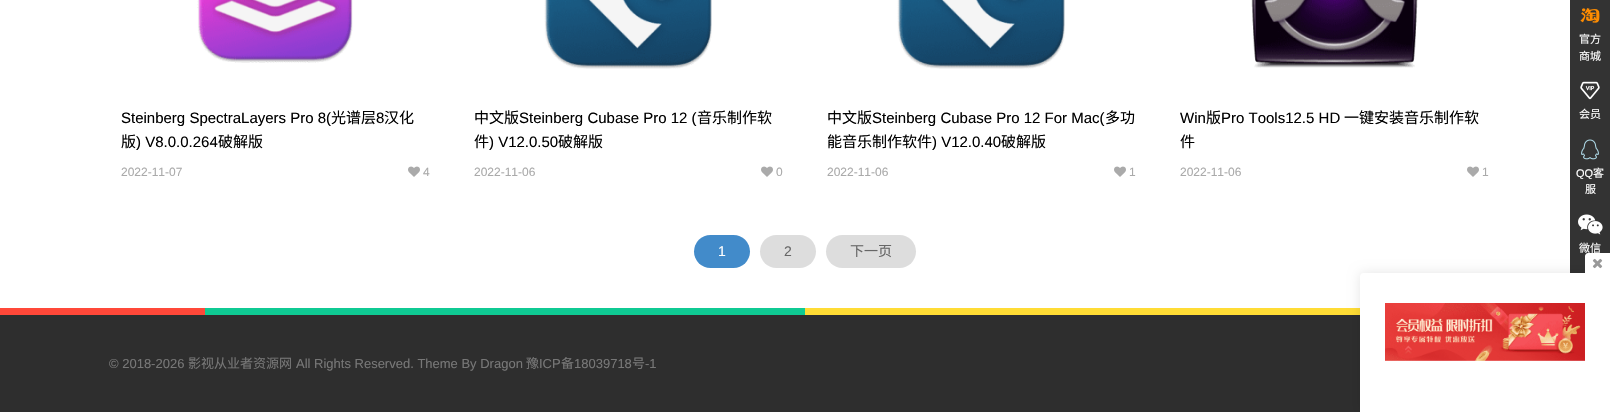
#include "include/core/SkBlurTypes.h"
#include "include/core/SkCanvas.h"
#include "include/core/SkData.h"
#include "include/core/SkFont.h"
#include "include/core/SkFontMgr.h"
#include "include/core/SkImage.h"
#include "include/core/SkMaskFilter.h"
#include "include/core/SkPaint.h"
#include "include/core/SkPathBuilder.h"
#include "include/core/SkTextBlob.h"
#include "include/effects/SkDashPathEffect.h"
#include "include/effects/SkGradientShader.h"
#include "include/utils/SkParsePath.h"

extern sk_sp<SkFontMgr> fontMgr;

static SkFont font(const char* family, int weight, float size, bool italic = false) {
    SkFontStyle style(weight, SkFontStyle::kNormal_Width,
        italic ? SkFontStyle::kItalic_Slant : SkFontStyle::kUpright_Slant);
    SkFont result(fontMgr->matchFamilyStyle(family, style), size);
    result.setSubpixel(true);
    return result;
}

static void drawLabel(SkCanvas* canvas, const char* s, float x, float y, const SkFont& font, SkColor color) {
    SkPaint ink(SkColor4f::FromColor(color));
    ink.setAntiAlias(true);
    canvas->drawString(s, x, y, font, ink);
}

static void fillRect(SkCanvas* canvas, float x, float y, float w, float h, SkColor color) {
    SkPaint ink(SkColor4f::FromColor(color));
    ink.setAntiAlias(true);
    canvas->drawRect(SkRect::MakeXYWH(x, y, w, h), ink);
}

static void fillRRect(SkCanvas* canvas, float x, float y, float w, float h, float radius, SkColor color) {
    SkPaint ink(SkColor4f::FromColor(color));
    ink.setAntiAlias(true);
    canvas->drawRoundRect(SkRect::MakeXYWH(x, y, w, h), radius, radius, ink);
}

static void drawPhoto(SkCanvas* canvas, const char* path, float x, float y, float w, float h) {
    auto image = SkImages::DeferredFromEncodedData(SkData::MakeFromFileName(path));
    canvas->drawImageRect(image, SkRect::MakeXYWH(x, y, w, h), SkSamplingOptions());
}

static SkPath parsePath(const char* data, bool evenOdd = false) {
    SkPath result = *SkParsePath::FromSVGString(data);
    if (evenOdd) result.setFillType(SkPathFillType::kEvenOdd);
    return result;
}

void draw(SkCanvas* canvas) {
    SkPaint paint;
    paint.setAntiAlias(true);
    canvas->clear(0xFFFFFFFF);
    drawPhoto(canvas, "assets/img1.png", 197, 0, 156, 63);
    SkFont font1 = font("Liberation Sans", 400, 15);
    drawLabel(canvas, "Steinberg SpectraLayers Pro 8(", 121, 123, font1, 0xFF000000);
    SkFont font2 = font("Noto Sans CJK SC", 400, 15);
    drawLabel(canvas, "光谱层", 331, 123, font2, 0xFF000000);
    drawLabel(canvas, "8", 376, 123, font1, 0xFF000000);
    drawLabel(canvas, "汉化", 384, 123, font2, 0xFF000000);
    drawLabel(canvas, "版", 121, 147, font2, 0xFF000000);
    drawLabel(canvas, ") V8.0.0.264", 136, 147, font1, 0xFF000000);
    drawLabel(canvas, "破解版", 218, 147, font2, 0xFF000000);
    SkFont font3 = font("Liberation Sans", 400, 12);
    drawLabel(canvas, "2022-11-07", 121, 176, font3, 0xFFAAAAAA);
    drawPhoto(canvas, "assets/img2.png", 408, 166, 12, 11);
    drawLabel(canvas, "4", 423, 176, font3, 0xFFAAAAAA);
    drawPhoto(canvas, "assets/img3.png", 544, 0, 168, 69);
    drawLabel(canvas, "中文版", 474, 123, font2, 0xFF000000);
    drawLabel(canvas, "Steinberg Cubase Pro 12 (", 519, 123, font1, 0xFF000000);
    drawLabel(canvas, "音乐制作软", 697, 123, font2, 0xFF000000);
    drawLabel(canvas, "件", 474, 147, font2, 0xFF000000);
    drawLabel(canvas, ") V12.0.50", 489, 147, font1, 0xFF000000);
    drawLabel(canvas, "破解版", 558, 147, font2, 0xFF000000);
    drawLabel(canvas, "2022-11-06", 474, 176, font3, 0xFFAAAAAA);
    drawPhoto(canvas, "assets/img2.png", 761, 166, 12, 11);
    drawLabel(canvas, "0", 776, 176, font3, 0xFFAAAAAA);
    drawPhoto(canvas, "assets/img3.png", 897, 0, 168, 69);
    drawLabel(canvas, "中文版", 827, 123, font2, 0xFF000000);
    drawLabel(canvas, "Steinberg Cubase Pro 12 For Mac(", 872, 123, font1, 0xFF000000);
    drawLabel(canvas, "多功", 1105, 123, font2, 0xFF000000);
    drawLabel(canvas, "能音乐制作软件", 827, 147, font2, 0xFF000000);
    drawLabel(canvas, ") V12.0.40", 932, 147, font1, 0xFF000000);
    drawLabel(canvas, "破解版", 1001, 147, font2, 0xFF000000);
    drawLabel(canvas, "2022-11-06", 827, 176, font3, 0xFFAAAAAA);
    drawPhoto(canvas, "assets/img2.png", 1114, 166, 12, 11);
    drawLabel(canvas, "1", 1129, 176, font3, 0xFFAAAAAA);
    drawPhoto(canvas, "assets/img4.png", 1251, 0, 167, 68);
    drawLabel(canvas, "Win", 1180, 123, font1, 0xFF000000);
    drawLabel(canvas, "版", 1206, 123, font2, 0xFF000000);
    drawLabel(canvas, "Pro Tools12.5 HD", 1221, 123, font1, 0xFF000000);
    drawLabel(canvas, "一键安装音乐制作软", 1344, 123, font2, 0xFF000000);
    drawLabel(canvas, "件", 1180, 147, font2, 0xFF000000);
    drawLabel(canvas, "2022-11-06", 1180, 176, font3, 0xFFAAAAAA);
    drawPhoto(canvas, "assets/img2.png", 1467, 166, 12, 11);
    drawLabel(canvas, "1", 1482, 176, font3, 0xFFAAAAAA);
    fillRRect(canvas, 694, 235, 56, 33, 16.5f, 0xFF428BCA);
    SkFont font4 = font("Liberation Sans", 400, 14);
    drawLabel(canvas, "1", 718, 256, font4, 0xFFFFFFFF);
    fillRRect(canvas, 760, 235, 56, 33, 16.5f, 0xFFDDDDDD);
    drawLabel(canvas, "2", 784, 256, font4, 0xFF666666);
    fillRRect(canvas, 826, 235, 90, 33, 16.5f, 0xFFDDDDDD);
    SkFont font5 = font("Noto Sans CJK SC", 400, 14);
    drawLabel(canvas, "下一页", 850, 256, font5, 0xFF666666);
    fillRect(canvas, 0, 308, 205, 7, 0xFFFF4839);
    fillRect(canvas, 205, 308, 600, 7, 0xFF0FCA93);
    fillRect(canvas, 805, 308, 555, 7, 0xFFFFDC35);
    fillRect(canvas, 0, 315, 1360, 97, 0xFF2E2E2E);
    SkFont font6 = font("Liberation Sans", 400, 13);
    drawLabel(canvas, "© 2018-2026", 109, 368, font6, 0xFF777777);
    SkFont font7 = font("Noto Sans CJK SC", 400, 13);
    drawLabel(canvas, "影视从业者资源网", 188, 368, font7, 0xFF777777);
    drawLabel(canvas, "All Rights Reserved. Theme By Dragon", 296, 368, font6, 0xFF777777);
    drawLabel(canvas, "豫", 526, 368, font7, 0xFF777777);
    drawLabel(canvas, "ICP", 539, 368, font6, 0xFF777777);
    drawLabel(canvas, "备", 561, 368, font7, 0xFF777777);
    drawLabel(canvas, "18039718", 574, 368, font6, 0xFF777777);
    drawLabel(canvas, "号", 632, 368, font7, 0xFF777777);
    drawLabel(canvas, "-1", 645, 368, font6, 0xFF777777);
    fillRect(canvas, 1570, 0, 40, 273, 0xFF333333);
    drawPhoto(canvas, "assets/img5.png", 1580, 8, 20, 15);
    SkFont font8 = font("Noto Sans CJK SC", 400, 11);
    drawLabel(canvas, "官方", 1579, 43, font8, 0xFFFFFFFF);
    drawLabel(canvas, "商城", 1579, 60, font8, 0xFFFFFFFF);
    drawPhoto(canvas, "assets/img6.png", 1580, 81, 20, 19);
    drawLabel(canvas, "会员", 1579, 118, font8, 0xFFFFFFFF);
    drawPhoto(canvas, "assets/img7.png", 1581, 139, 18, 21);
    SkFont font9 = font("Liberation Sans", 400, 11);
    drawLabel(canvas, "QQ", 1576, 177, font9, 0xFFFFFFFF);
    drawLabel(canvas, "客", 1593, 177, font8, 0xFFFFFFFF);
    drawLabel(canvas, "服", 1585, 193, font8, 0xFFFFFFFF);
    drawPhoto(canvas, "assets/img8.png", 1578, 214, 25, 21);
    drawLabel(canvas, "微信", 1579, 252, font8, 0xFFFFFFFF);
    paint.setColor(0x1A000000);
    paint.setMaskFilter(SkMaskFilter::MakeBlur(kNormal_SkBlurStyle, 6));
    canvas->drawRoundRect(SkRect::MakeXYWH(1360, 273, 250, 139), 3, 3, paint);
    paint.setMaskFilter(nullptr);
    paint.setColor(0xFFFFFFFF);
    canvas->drawPath(parsePath("M1363 273H1610V412H1360V276C1360 274.5 1361.5 273 1363 273Z"), paint);
    canvas->drawPath(parsePath("M1588 253H1610V278H1585V256C1585 254.5 1586.5 253 1588 253Z"), paint);
    drawPhoto(canvas, "assets/img9.png", 1592, 258, 11, 11);
    drawPhoto(canvas, "assets/img10.png", 1385, 303, 200, 58);
}
